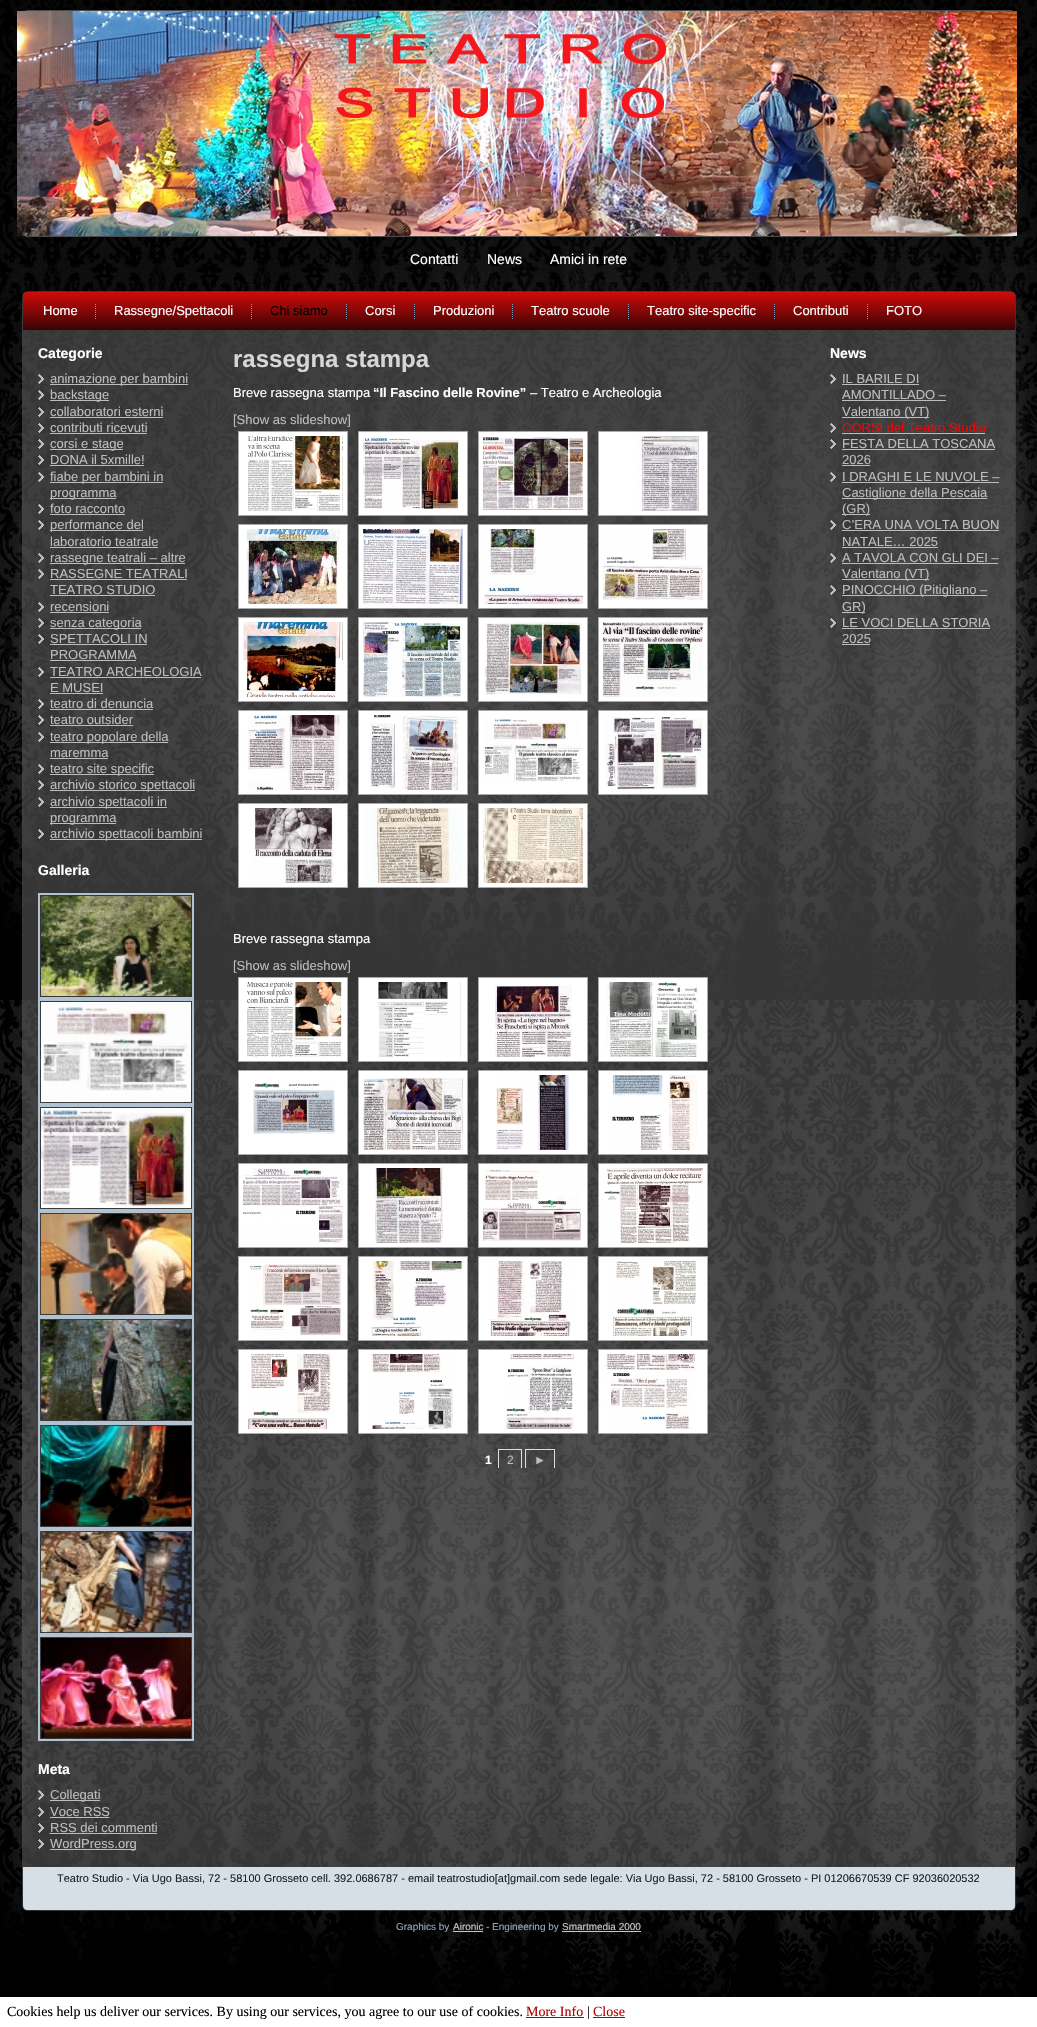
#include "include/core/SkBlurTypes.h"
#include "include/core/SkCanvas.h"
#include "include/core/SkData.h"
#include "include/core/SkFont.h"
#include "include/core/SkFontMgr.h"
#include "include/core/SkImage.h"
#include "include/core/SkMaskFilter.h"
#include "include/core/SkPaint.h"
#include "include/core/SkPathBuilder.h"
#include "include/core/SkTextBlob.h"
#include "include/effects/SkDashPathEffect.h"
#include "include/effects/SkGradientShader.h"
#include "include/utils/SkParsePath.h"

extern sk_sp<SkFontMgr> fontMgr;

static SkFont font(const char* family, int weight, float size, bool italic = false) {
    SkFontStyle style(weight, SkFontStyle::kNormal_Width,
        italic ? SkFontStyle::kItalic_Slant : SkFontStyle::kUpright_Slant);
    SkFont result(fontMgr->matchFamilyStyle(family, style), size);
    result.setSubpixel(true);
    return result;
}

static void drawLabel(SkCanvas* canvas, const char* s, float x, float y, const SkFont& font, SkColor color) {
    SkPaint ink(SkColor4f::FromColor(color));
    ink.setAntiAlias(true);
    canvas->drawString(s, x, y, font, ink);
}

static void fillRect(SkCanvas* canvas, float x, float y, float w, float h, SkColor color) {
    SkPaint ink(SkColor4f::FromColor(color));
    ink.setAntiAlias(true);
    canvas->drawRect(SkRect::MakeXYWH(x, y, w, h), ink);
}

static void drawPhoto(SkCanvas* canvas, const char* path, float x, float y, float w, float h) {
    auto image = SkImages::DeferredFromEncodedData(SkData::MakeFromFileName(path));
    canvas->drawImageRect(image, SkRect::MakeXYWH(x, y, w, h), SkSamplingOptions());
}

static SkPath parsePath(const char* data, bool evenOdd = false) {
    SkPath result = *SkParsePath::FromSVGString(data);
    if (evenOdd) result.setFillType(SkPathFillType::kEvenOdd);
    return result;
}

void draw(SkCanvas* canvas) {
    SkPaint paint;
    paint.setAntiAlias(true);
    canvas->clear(0xFFFFFFFF);
    drawPhoto(canvas, "assets/img1.png", 0, 897, 1037, 1100);
    drawPhoto(canvas, "assets/img2.png", 0, 0, 1037, 897);
    drawPhoto(canvas, "assets/img3.png", 22, 10, 994, 227);
    drawPhoto(canvas, "assets/img4.png", 17, 11, 1000, 225);
    SkFont font1 = font("Liberation Sans", 400, 14);
    drawLabel(canvas, "Contatti", 410, 264, font1, 0xFFFFFFFF);
    drawLabel(canvas, "News", 487, 264, font1, 0xFFFFFFFF);
    drawLabel(canvas, "Amici in rete", 550, 264, font1, 0xFFFFFFFF);
    drawPhoto(canvas, "assets/img5.png", 22, 291, 15, 15);
    fillRect(canvas, 37, 291, 964, 1, 0x99585858);
    drawPhoto(canvas, "assets/img6.png", 1001, 291, 15, 15);
    fillRect(canvas, 22, 306, 15, 1590, 0x99585858);
    drawPhoto(canvas, "assets/img93.png", 1001, 306, 16, 1590);
    drawPhoto(canvas, "assets/img7.png", 23, 292, 987, 38);
    drawPhoto(canvas, "assets/img8.png", 1010, 292, 5, 38);
    SkFont font2 = font("Liberation Sans", 400, 13);
    drawLabel(canvas, "Home", 43, 315, font2, 0xFFFFFFFF);
    drawPhoto(canvas, "assets/img9.png", 95, 304, 1, 15);
    drawLabel(canvas, "Rassegne/Spettacoli", 114, 315, font2, 0xFFFFFFFF);
    drawPhoto(canvas, "assets/img9.png", 251, 304, 1, 15);
    drawLabel(canvas, "Chi siamo", 270, 315, font2, 0xFF000000);
    drawPhoto(canvas, "assets/img9.png", 346, 304, 1, 15);
    drawLabel(canvas, "Corsi", 365, 315, font2, 0xFFFFFFFF);
    drawPhoto(canvas, "assets/img9.png", 414, 304, 1, 15);
    drawLabel(canvas, "Produzioni", 433, 315, font2, 0xFFFFFFFF);
    drawPhoto(canvas, "assets/img9.png", 512, 304, 1, 15);
    drawLabel(canvas, "Teatro scuole", 531, 315, font2, 0xFFFFFFFF);
    drawPhoto(canvas, "assets/img9.png", 628, 304, 1, 15);
    drawLabel(canvas, "Teatro site-specific", 647, 315, font2, 0xFFFFFFFF);
    drawPhoto(canvas, "assets/img9.png", 774, 304, 1, 15);
    drawLabel(canvas, "Contributi", 793, 315, font2, 0xFFFFFFFF);
    drawPhoto(canvas, "assets/img9.png", 867, 304, 1, 15);
    drawLabel(canvas, "FOTO", 886, 315, font2, 0xFFFFFFFF);
    fillRect(canvas, 37, 330, 964, 1537, 0x99585858);
    SkFont font3 = font("Liberation Sans", 700, 14);
    drawLabel(canvas, "Categorie", 38, 358, font3, 0xFFFFFFFF);
    drawPhoto(canvas, "assets/img10.png", 38, 374, 6, 10);
    fillRect(canvas, 50, 384, 138, 1, 0xFFBDBDBD);
    drawLabel(canvas, "animazione per bambini", 50, 383, font2, 0xFFBDBDBD);
    drawPhoto(canvas, "assets/img11.png", 38, 390, 6, 10);
    fillRect(canvas, 50, 400, 59, 1, 0xFFBDBDBD);
    drawLabel(canvas, "backstage", 50, 399, font2, 0xFFBDBDBD);
    drawPhoto(canvas, "assets/img12.png", 38, 407, 6, 10);
    drawLabel(canvas, "collaboratori esterni", 50, 416, font2, 0xFFBDBDBD);
    fillRect(canvas, 50, 417, 113, 1, 0xFFBDBDBD);
    drawPhoto(canvas, "assets/img13.png", 38, 423, 6, 10);
    drawLabel(canvas, "contributi ricevuti", 50, 432, font2, 0xFFBDBDBD);
    fillRect(canvas, 50, 433, 97, 1, 0xFFBDBDBD);
    drawPhoto(canvas, "assets/img14.png", 38, 439, 6, 10);
    fillRect(canvas, 50, 449, 73, 1, 0xFFBDBDBD);
    drawLabel(canvas, "corsi e stage", 50, 448, font2, 0xFFBDBDBD);
    drawPhoto(canvas, "assets/img15.png", 38, 455, 6, 10);
    drawLabel(canvas, "DONA il 5xmille!", 50, 464, font2, 0xFFBDBDBD);
    fillRect(canvas, 50, 465, 94, 1, 0xFFBDBDBD);
    drawPhoto(canvas, "assets/img16.png", 38, 472, 6, 10);
    fillRect(canvas, 50, 482, 113, 1, 0xFFBDBDBD);
    drawLabel(canvas, "fiabe per bambini in", 50, 481, font2, 0xFFBDBDBD);
    fillRect(canvas, 50, 498, 66, 1, 0xFFBDBDBD);
    drawLabel(canvas, "programma", 50, 497, font2, 0xFFBDBDBD);
    drawPhoto(canvas, "assets/img17.png", 38, 504, 6, 10);
    drawLabel(canvas, "foto racconto", 50, 513, font2, 0xFFBDBDBD);
    fillRect(canvas, 50, 514, 75, 1, 0xFFBDBDBD);
    drawPhoto(canvas, "assets/img18.png", 38, 520, 6, 10);
    fillRect(canvas, 50, 530, 93, 1, 0xFFBDBDBD);
    drawLabel(canvas, "performance del", 50, 529, font2, 0xFFBDBDBD);
    drawLabel(canvas, "laboratorio teatrale", 50, 546, font2, 0xFFBDBDBD);
    fillRect(canvas, 50, 547, 108, 1, 0xFFBDBDBD);
    drawPhoto(canvas, "assets/img19.png", 38, 553, 6, 10);
    fillRect(canvas, 50, 563, 135, 1, 0xFFBDBDBD);
    drawLabel(canvas, "rassegne teatrali – altre", 50, 562, font2, 0xFFBDBDBD);
    drawPhoto(canvas, "assets/img20.png", 38, 569, 6, 10);
    drawLabel(canvas, "RASSEGNE TEATRALI", 50, 578, font2, 0xFFBDBDBD);
    fillRect(canvas, 50, 579, 137, 1, 0xFFBDBDBD);
    drawLabel(canvas, "TEATRO STUDIO", 50, 594, font2, 0xFFBDBDBD);
    fillRect(canvas, 50, 595, 105, 1, 0xFFBDBDBD);
    drawPhoto(canvas, "assets/img21.png", 38, 602, 6, 10);
    drawLabel(canvas, "recensioni", 50, 611, font2, 0xFFBDBDBD);
    fillRect(canvas, 50, 612, 59, 1, 0xFFBDBDBD);
    drawPhoto(canvas, "assets/img22.png", 38, 618, 6, 10);
    fillRect(canvas, 50, 628, 91, 1, 0xFFBDBDBD);
    drawLabel(canvas, "senza categoria", 50, 627, font2, 0xFFBDBDBD);
    drawPhoto(canvas, "assets/img23.png", 38, 634, 6, 10);
    drawLabel(canvas, "SPETTACOLI IN", 50, 643, font2, 0xFFBDBDBD);
    fillRect(canvas, 50, 644, 97, 1, 0xFFBDBDBD);
    drawLabel(canvas, "PROGRAMMA", 50, 659, font2, 0xFFBDBDBD);
    fillRect(canvas, 50, 660, 86, 1, 0xFFBDBDBD);
    drawPhoto(canvas, "assets/img24.png", 38, 667, 6, 10);
    drawLabel(canvas, "TEATRO ARCHEOLOGIA", 50, 676, font2, 0xFFBDBDBD);
    fillRect(canvas, 50, 677, 151, 1, 0xFFBDBDBD);
    drawLabel(canvas, "E MUSEI", 50, 692, font2, 0xFFBDBDBD);
    fillRect(canvas, 50, 693, 53, 1, 0xFFBDBDBD);
    drawPhoto(canvas, "assets/img25.png", 38, 699, 6, 10);
    drawLabel(canvas, "teatro di denuncia", 50, 708, font2, 0xFFBDBDBD);
    fillRect(canvas, 50, 709, 103, 1, 0xFFBDBDBD);
    drawPhoto(canvas, "assets/img26.png", 38, 715, 6, 10);
    drawLabel(canvas, "teatro outsider", 50, 724, font2, 0xFFBDBDBD);
    fillRect(canvas, 50, 725, 83, 1, 0xFFBDBDBD);
    drawPhoto(canvas, "assets/img27.png", 38, 732, 6, 10);
    fillRect(canvas, 50, 742, 118, 1, 0xFFBDBDBD);
    drawLabel(canvas, "teatro popolare della", 50, 741, font2, 0xFFBDBDBD);
    drawLabel(canvas, "maremma", 50, 757, font2, 0xFFBDBDBD);
    fillRect(canvas, 50, 758, 58, 1, 0xFFBDBDBD);
    drawPhoto(canvas, "assets/img28.png", 38, 764, 6, 10);
    fillRect(canvas, 50, 774, 104, 1, 0xFFBDBDBD);
    drawLabel(canvas, "teatro site specific", 50, 773, font2, 0xFFBDBDBD);
    drawPhoto(canvas, "assets/img29.png", 38, 780, 6, 10);
    fillRect(canvas, 50, 790, 145, 1, 0xFFBDBDBD);
    drawLabel(canvas, "archivio storico spettacoli", 50, 789, font2, 0xFFBDBDBD);
    drawPhoto(canvas, "assets/img30.png", 38, 797, 6, 10);
    fillRect(canvas, 50, 807, 117, 1, 0xFFBDBDBD);
    drawLabel(canvas, "archivio spettacoli in", 50, 806, font2, 0xFFBDBDBD);
    fillRect(canvas, 50, 823, 66, 1, 0xFFBDBDBD);
    drawLabel(canvas, "programma", 50, 822, font2, 0xFFBDBDBD);
    drawPhoto(canvas, "assets/img31.png", 38, 829, 6, 10);
    fillRect(canvas, 50, 839, 152, 1, 0xFFBDBDBD);
    drawLabel(canvas, "archivio spettacoli bambini", 50, 838, font2, 0xFFBDBDBD);
    drawLabel(canvas, "Galleria", 38, 875, font3, 0xFFFFFFFF);
    paint.setStroke(true);
    paint.setStrokeWidth(2);
    paint.setColor(0xFFB2C2D1);
    canvas->drawRect(SkRect::MakeXYWH(39, 894, 154, 104), paint);
    drawPhoto(canvas, "assets/img32.png", 41, 896, 150, 100);
    canvas->drawRect(SkRect::MakeXYWH(39, 1000, 154, 104), paint);
    drawPhoto(canvas, "assets/img33.png", 41, 1002, 150, 100);
    canvas->drawRect(SkRect::MakeXYWH(39, 1106, 154, 104), paint);
    drawPhoto(canvas, "assets/img34.png", 41, 1108, 150, 100);
    canvas->drawRect(SkRect::MakeXYWH(39, 1212, 154, 104), paint);
    drawPhoto(canvas, "assets/img35.png", 41, 1214, 150, 100);
    canvas->drawRect(SkRect::MakeXYWH(39, 1318, 154, 104), paint);
    drawPhoto(canvas, "assets/img36.png", 41, 1320, 150, 100);
    canvas->drawRect(SkRect::MakeXYWH(39, 1424, 154, 104), paint);
    drawPhoto(canvas, "assets/img37.png", 41, 1426, 150, 100);
    canvas->drawRect(SkRect::MakeXYWH(39, 1530, 154, 104), paint);
    drawPhoto(canvas, "assets/img38.png", 41, 1532, 150, 100);
    canvas->drawRect(SkRect::MakeXYWH(39, 1636, 154, 104), paint);
    drawPhoto(canvas, "assets/img39.png", 41, 1638, 150, 100);
    drawLabel(canvas, "Meta", 38, 1774, font3, 0xFFFFFFFF);
    drawPhoto(canvas, "assets/img40.png", 38, 1790, 6, 10);
    fillRect(canvas, 50, 1800, 50, 1, 0xFFBDBDBD);
    drawLabel(canvas, "Collegati", 50, 1799, font2, 0xFFBDBDBD);
    drawPhoto(canvas, "assets/img41.png", 38, 1807, 6, 10);
    drawLabel(canvas, "Voce RSS", 50, 1816, font2, 0xFFBDBDBD);
    fillRect(canvas, 50, 1817, 33, 1, 0xFFBDBDBD);
    paint.setStrokeWidth(1);
    paint.setColor(0xFFBDBDBD);
    paint.setPathEffect(SkDashPathEffect::Make({{1, 1}}, 0));
    canvas->drawPath(parsePath("M83 1817.5H109.5"), paint);
    paint.setPathEffect(nullptr);
    fillRect(canvas, 83, 1817, 26, 1, 0xFFBDBDBD);
    drawPhoto(canvas, "assets/img42.png", 38, 1823, 6, 10);
    drawLabel(canvas, "RSS dei commenti", 50, 1832, font2, 0xFFBDBDBD);
    paint.setPathEffect(SkDashPathEffect::Make({{1, 1}}, 0));
    canvas->drawPath(parsePath("M49.5 1833.5H76"), paint);
    paint.setPathEffect(nullptr);
    fillRect(canvas, 50, 1833, 107, 1, 0xFFBDBDBD);
    drawPhoto(canvas, "assets/img43.png", 38, 1839, 6, 10);
    fillRect(canvas, 50, 1849, 86, 1, 0xFFBDBDBD);
    drawLabel(canvas, "WordPress.org", 50, 1848, font2, 0xFFBDBDBD);
    SkFont font4 = font("Liberation Sans", 700, 24);
    drawLabel(canvas, "rassegna stampa", 233, 367, font4, 0xFFD6D6D6);
    drawLabel(canvas, "Breve rassegna stampa", 233, 397, font2, 0xFFFFFFFF);
    SkFont font5 = font("Liberation Sans", 700, 13);
    drawLabel(canvas, "“Il Fascino delle Rovine”", 373, 397, font5, 0xFFFFFFFF);
    drawLabel(canvas, "– Teatro e Archeologia", 530, 397, font2, 0xFFFFFFFF);
    drawLabel(canvas, "[Show as slideshow]", 233, 424, font2, 0xFFBDBDBD);
    paint.setStroke(false);
    paint.setColor(0xFFFFFFFF);
    canvas->drawRect(SkRect::MakeXYWH(238.5f, 431.5f, 109, 84), paint);
    paint.setStroke(true);
    paint.setColor(0xFFA9A9A9);
    canvas->drawRect(SkRect::MakeXYWH(238.5f, 431.5f, 109, 84), paint);
    drawPhoto(canvas, "assets/img44.png", 248, 436, 95, 75);
    paint.setStroke(false);
    paint.setColor(0xFFFFFFFF);
    canvas->drawRect(SkRect::MakeXYWH(358.5f, 431.5f, 109, 84), paint);
    paint.setStroke(true);
    paint.setColor(0xFFA9A9A9);
    canvas->drawRect(SkRect::MakeXYWH(358.5f, 431.5f, 109, 84), paint);
    drawPhoto(canvas, "assets/img45.png", 363, 437, 97, 73);
    paint.setStroke(false);
    paint.setColor(0xFFFFFFFF);
    canvas->drawRect(SkRect::MakeXYWH(478.5f, 431.5f, 109, 84), paint);
    paint.setStroke(true);
    paint.setColor(0xFFA9A9A9);
    canvas->drawRect(SkRect::MakeXYWH(478.5f, 431.5f, 109, 84), paint);
    drawPhoto(canvas, "assets/img46.png", 483, 437, 100, 74);
    paint.setStroke(false);
    paint.setColor(0xFFFFFFFF);
    canvas->drawRect(SkRect::MakeXYWH(598.5f, 431.5f, 109, 84), paint);
    paint.setStroke(true);
    paint.setColor(0xFFA9A9A9);
    canvas->drawRect(SkRect::MakeXYWH(598.5f, 431.5f, 109, 84), paint);
    drawPhoto(canvas, "assets/img47.png", 635, 436, 64, 75);
    paint.setStroke(false);
    paint.setColor(0xFFFFFFFF);
    canvas->drawRect(SkRect::MakeXYWH(238.5f, 524.5f, 109, 84), paint);
    paint.setStroke(true);
    paint.setColor(0xFFA9A9A9);
    canvas->drawRect(SkRect::MakeXYWH(238.5f, 524.5f, 109, 84), paint);
    drawPhoto(canvas, "assets/img48.png", 246, 529, 94, 75);
    paint.setStroke(false);
    paint.setColor(0xFFFFFFFF);
    canvas->drawRect(SkRect::MakeXYWH(358.5f, 524.5f, 109, 84), paint);
    paint.setStroke(true);
    paint.setColor(0xFFA9A9A9);
    canvas->drawRect(SkRect::MakeXYWH(358.5f, 524.5f, 109, 84), paint);
    drawPhoto(canvas, "assets/img49.png", 363, 529, 100, 75);
    paint.setStroke(false);
    paint.setColor(0xFFFFFFFF);
    canvas->drawRect(SkRect::MakeXYWH(478.5f, 524.5f, 109, 84), paint);
    paint.setStroke(true);
    paint.setColor(0xFFA9A9A9);
    canvas->drawRect(SkRect::MakeXYWH(478.5f, 524.5f, 109, 84), paint);
    drawPhoto(canvas, "assets/img50.png", 484, 529, 99, 75);
    paint.setStroke(false);
    paint.setColor(0xFFFFFFFF);
    canvas->drawRect(SkRect::MakeXYWH(598.5f, 524.5f, 109, 84), paint);
    paint.setStroke(true);
    paint.setColor(0xFFA9A9A9);
    canvas->drawRect(SkRect::MakeXYWH(598.5f, 524.5f, 109, 84), paint);
    drawPhoto(canvas, "assets/img51.png", 603, 529, 100, 71);
    paint.setStroke(false);
    paint.setColor(0xFFFFFFFF);
    canvas->drawRect(SkRect::MakeXYWH(238.5f, 617.5f, 109, 84), paint);
    paint.setStroke(true);
    paint.setColor(0xFFA9A9A9);
    canvas->drawRect(SkRect::MakeXYWH(238.5f, 617.5f, 109, 84), paint);
    drawPhoto(canvas, "assets/img52.png", 243, 622, 100, 75);
    paint.setStroke(false);
    paint.setColor(0xFFFFFFFF);
    canvas->drawRect(SkRect::MakeXYWH(358.5f, 617.5f, 109, 84), paint);
    paint.setStroke(true);
    paint.setColor(0xFFA9A9A9);
    canvas->drawRect(SkRect::MakeXYWH(358.5f, 617.5f, 109, 84), paint);
    drawPhoto(canvas, "assets/img53.png", 363, 622, 100, 75);
    paint.setStroke(false);
    paint.setColor(0xFFFFFFFF);
    canvas->drawRect(SkRect::MakeXYWH(478.5f, 617.5f, 109, 84), paint);
    paint.setStroke(true);
    paint.setColor(0xFFA9A9A9);
    canvas->drawRect(SkRect::MakeXYWH(478.5f, 617.5f, 109, 84), paint);
    drawPhoto(canvas, "assets/img54.png", 485, 622, 97, 73);
    paint.setStroke(false);
    paint.setColor(0xFFFFFFFF);
    canvas->drawRect(SkRect::MakeXYWH(598.5f, 617.5f, 109, 84), paint);
    paint.setStroke(true);
    paint.setColor(0xFFA9A9A9);
    canvas->drawRect(SkRect::MakeXYWH(598.5f, 617.5f, 109, 84), paint);
    drawPhoto(canvas, "assets/img55.png", 603, 622, 100, 75);
    paint.setStroke(false);
    paint.setColor(0xFFFFFFFF);
    canvas->drawRect(SkRect::MakeXYWH(238.5f, 710.5f, 109, 84), paint);
    paint.setStroke(true);
    paint.setColor(0xFFA9A9A9);
    canvas->drawRect(SkRect::MakeXYWH(238.5f, 710.5f, 109, 84), paint);
    drawPhoto(canvas, "assets/img56.png", 247, 715, 93, 75);
    paint.setStroke(false);
    paint.setColor(0xFFFFFFFF);
    canvas->drawRect(SkRect::MakeXYWH(358.5f, 710.5f, 109, 84), paint);
    paint.setStroke(true);
    paint.setColor(0xFFA9A9A9);
    canvas->drawRect(SkRect::MakeXYWH(358.5f, 710.5f, 109, 84), paint);
    drawPhoto(canvas, "assets/img57.png", 370, 715, 88, 75);
    paint.setStroke(false);
    paint.setColor(0xFFFFFFFF);
    canvas->drawRect(SkRect::MakeXYWH(478.5f, 710.5f, 109, 84), paint);
    paint.setStroke(true);
    paint.setColor(0xFFA9A9A9);
    canvas->drawRect(SkRect::MakeXYWH(478.5f, 710.5f, 109, 84), paint);
    drawPhoto(canvas, "assets/img58.png", 484, 718, 97, 64);
    paint.setStroke(false);
    paint.setColor(0xFFFFFFFF);
    canvas->drawRect(SkRect::MakeXYWH(598.5f, 710.5f, 109, 84), paint);
    paint.setStroke(true);
    paint.setColor(0xFFA9A9A9);
    canvas->drawRect(SkRect::MakeXYWH(598.5f, 710.5f, 109, 84), paint);
    drawPhoto(canvas, "assets/img59.png", 605, 717, 98, 73);
    paint.setStroke(false);
    paint.setColor(0xFFFFFFFF);
    canvas->drawRect(SkRect::MakeXYWH(238.5f, 803.5f, 109, 84), paint);
    paint.setStroke(true);
    paint.setColor(0xFFA9A9A9);
    canvas->drawRect(SkRect::MakeXYWH(238.5f, 803.5f, 109, 84), paint);
    drawPhoto(canvas, "assets/img60.png", 254, 808, 80, 75);
    paint.setStroke(false);
    paint.setColor(0xFFFFFFFF);
    canvas->drawRect(SkRect::MakeXYWH(358.5f, 803.5f, 109, 84), paint);
    paint.setStroke(true);
    paint.setColor(0xFFA9A9A9);
    canvas->drawRect(SkRect::MakeXYWH(358.5f, 803.5f, 109, 84), paint);
    drawPhoto(canvas, "assets/img61.png", 363, 808, 100, 75);
    paint.setStroke(false);
    paint.setColor(0xFFFFFFFF);
    canvas->drawRect(SkRect::MakeXYWH(478.5f, 803.5f, 109, 84), paint);
    paint.setStroke(true);
    paint.setColor(0xFFA9A9A9);
    canvas->drawRect(SkRect::MakeXYWH(478.5f, 803.5f, 109, 84), paint);
    drawPhoto(canvas, "assets/img62.png", 483, 808, 100, 75);
    drawLabel(canvas, "Breve rassegna stampa", 233, 943, font2, 0xFFFFFFFF);
    drawLabel(canvas, "[Show as slideshow]", 233, 970, font2, 0xFFBDBDBD);
    paint.setStroke(false);
    paint.setColor(0xFFFFFFFF);
    canvas->drawRect(SkRect::MakeXYWH(238.5f, 977.5f, 109, 84), paint);
    paint.setStroke(true);
    paint.setColor(0xFFA9A9A9);
    canvas->drawRect(SkRect::MakeXYWH(238.5f, 977.5f, 109, 84), paint);
    drawPhoto(canvas, "assets/img63.png", 247, 982, 96, 75);
    paint.setStroke(false);
    paint.setColor(0xFFFFFFFF);
    canvas->drawRect(SkRect::MakeXYWH(358.5f, 977.5f, 109, 84), paint);
    paint.setStroke(true);
    paint.setColor(0xFFA9A9A9);
    canvas->drawRect(SkRect::MakeXYWH(358.5f, 977.5f, 109, 84), paint);
    drawPhoto(canvas, "assets/img64.png", 378, 982, 83, 75);
    paint.setStroke(false);
    paint.setColor(0xFFFFFFFF);
    canvas->drawRect(SkRect::MakeXYWH(478.5f, 977.5f, 109, 84), paint);
    paint.setStroke(true);
    paint.setColor(0xFFA9A9A9);
    canvas->drawRect(SkRect::MakeXYWH(478.5f, 977.5f, 109, 84), paint);
    drawPhoto(canvas, "assets/img65.png", 495, 985, 77, 72);
    paint.setStroke(false);
    paint.setColor(0xFFFFFFFF);
    canvas->drawRect(SkRect::MakeXYWH(598.5f, 977.5f, 109, 84), paint);
    paint.setStroke(true);
    paint.setColor(0xFFA9A9A9);
    canvas->drawRect(SkRect::MakeXYWH(598.5f, 977.5f, 109, 84), paint);
    drawPhoto(canvas, "assets/img66.png", 606, 982, 93, 75);
    paint.setStroke(false);
    paint.setColor(0xFFFFFFFF);
    canvas->drawRect(SkRect::MakeXYWH(238.5f, 1070.5f, 109, 84), paint);
    paint.setStroke(true);
    paint.setColor(0xFFA9A9A9);
    canvas->drawRect(SkRect::MakeXYWH(238.5f, 1070.5f, 109, 84), paint);
    drawPhoto(canvas, "assets/img67.png", 253, 1082, 83, 52);
    paint.setStroke(false);
    paint.setColor(0xFFFFFFFF);
    canvas->drawRect(SkRect::MakeXYWH(358.5f, 1070.5f, 109, 84), paint);
    paint.setStroke(true);
    paint.setColor(0xFFA9A9A9);
    canvas->drawRect(SkRect::MakeXYWH(358.5f, 1070.5f, 109, 84), paint);
    drawPhoto(canvas, "assets/img68.png", 363, 1075, 100, 75);
    paint.setStroke(false);
    paint.setColor(0xFFFFFFFF);
    canvas->drawRect(SkRect::MakeXYWH(478.5f, 1070.5f, 109, 84), paint);
    paint.setStroke(true);
    paint.setColor(0xFFA9A9A9);
    canvas->drawRect(SkRect::MakeXYWH(478.5f, 1070.5f, 109, 84), paint);
    drawPhoto(canvas, "assets/img69.png", 496, 1075, 73, 75);
    paint.setStroke(false);
    paint.setColor(0xFFFFFFFF);
    canvas->drawRect(SkRect::MakeXYWH(598.5f, 1070.5f, 109, 84), paint);
    paint.setStroke(true);
    paint.setColor(0xFFA9A9A9);
    canvas->drawRect(SkRect::MakeXYWH(598.5f, 1070.5f, 109, 84), paint);
    drawPhoto(canvas, "assets/img70.png", 612, 1075, 85, 75);
    paint.setStroke(false);
    paint.setColor(0xFFFFFFFF);
    canvas->drawRect(SkRect::MakeXYWH(238.5f, 1163.5f, 109, 84), paint);
    paint.setStroke(true);
    paint.setColor(0xFFA9A9A9);
    canvas->drawRect(SkRect::MakeXYWH(238.5f, 1163.5f, 109, 84), paint);
    drawPhoto(canvas, "assets/img71.png", 243, 1168, 100, 75);
    paint.setStroke(false);
    paint.setColor(0xFFFFFFFF);
    canvas->drawRect(SkRect::MakeXYWH(358.5f, 1163.5f, 109, 84), paint);
    paint.setStroke(true);
    paint.setColor(0xFFA9A9A9);
    canvas->drawRect(SkRect::MakeXYWH(358.5f, 1163.5f, 109, 84), paint);
    drawPhoto(canvas, "assets/img72.png", 375, 1168, 68, 75);
    paint.setStroke(false);
    paint.setColor(0xFFFFFFFF);
    canvas->drawRect(SkRect::MakeXYWH(478.5f, 1163.5f, 109, 84), paint);
    paint.setStroke(true);
    paint.setColor(0xFFA9A9A9);
    canvas->drawRect(SkRect::MakeXYWH(478.5f, 1163.5f, 109, 84), paint);
    drawPhoto(canvas, "assets/img73.png", 483, 1169, 98, 73);
    paint.setStroke(false);
    paint.setColor(0xFFFFFFFF);
    canvas->drawRect(SkRect::MakeXYWH(598.5f, 1163.5f, 109, 84), paint);
    paint.setStroke(true);
    paint.setColor(0xFFA9A9A9);
    canvas->drawRect(SkRect::MakeXYWH(598.5f, 1163.5f, 109, 84), paint);
    drawPhoto(canvas, "assets/img74.png", 604, 1168, 99, 75);
    paint.setStroke(false);
    paint.setColor(0xFFFFFFFF);
    canvas->drawRect(SkRect::MakeXYWH(238.5f, 1256.5f, 109, 84), paint);
    paint.setStroke(true);
    paint.setColor(0xFFA9A9A9);
    canvas->drawRect(SkRect::MakeXYWH(238.5f, 1256.5f, 109, 84), paint);
    drawPhoto(canvas, "assets/img75.png", 249, 1264, 93, 72);
    paint.setStroke(false);
    paint.setColor(0xFFFFFFFF);
    canvas->drawRect(SkRect::MakeXYWH(358.5f, 1256.5f, 109, 84), paint);
    paint.setStroke(true);
    paint.setColor(0xFFA9A9A9);
    canvas->drawRect(SkRect::MakeXYWH(358.5f, 1256.5f, 109, 84), paint);
    drawPhoto(canvas, "assets/img76.png", 371, 1261, 92, 75);
    paint.setStroke(false);
    paint.setColor(0xFFFFFFFF);
    canvas->drawRect(SkRect::MakeXYWH(478.5f, 1256.5f, 109, 84), paint);
    paint.setStroke(true);
    paint.setColor(0xFFA9A9A9);
    canvas->drawRect(SkRect::MakeXYWH(478.5f, 1256.5f, 109, 84), paint);
    drawPhoto(canvas, "assets/img77.png", 488, 1261, 83, 75);
    paint.setStroke(false);
    paint.setColor(0xFFFFFFFF);
    canvas->drawRect(SkRect::MakeXYWH(598.5f, 1256.5f, 109, 84), paint);
    paint.setStroke(true);
    paint.setColor(0xFFA9A9A9);
    canvas->drawRect(SkRect::MakeXYWH(598.5f, 1256.5f, 109, 84), paint);
    drawPhoto(canvas, "assets/img78.png", 612, 1261, 85, 75);
    paint.setStroke(false);
    paint.setColor(0xFFFFFFFF);
    canvas->drawRect(SkRect::MakeXYWH(238.5f, 1349.5f, 109, 84), paint);
    paint.setStroke(true);
    paint.setColor(0xFFA9A9A9);
    canvas->drawRect(SkRect::MakeXYWH(238.5f, 1349.5f, 109, 84), paint);
    drawPhoto(canvas, "assets/img79.png", 248, 1354, 85, 75);
    paint.setStroke(false);
    paint.setColor(0xFFFFFFFF);
    canvas->drawRect(SkRect::MakeXYWH(358.5f, 1349.5f, 109, 84), paint);
    paint.setStroke(true);
    paint.setColor(0xFFA9A9A9);
    canvas->drawRect(SkRect::MakeXYWH(358.5f, 1349.5f, 109, 84), paint);
    drawPhoto(canvas, "assets/img80.png", 371, 1354, 82, 75);
    paint.setStroke(false);
    paint.setColor(0xFFFFFFFF);
    canvas->drawRect(SkRect::MakeXYWH(478.5f, 1349.5f, 109, 84), paint);
    paint.setStroke(true);
    paint.setColor(0xFFA9A9A9);
    canvas->drawRect(SkRect::MakeXYWH(478.5f, 1349.5f, 109, 84), paint);
    drawPhoto(canvas, "assets/img81.png", 505, 1354, 69, 75);
    paint.setStroke(false);
    paint.setColor(0xFFFFFFFF);
    canvas->drawRect(SkRect::MakeXYWH(598.5f, 1349.5f, 109, 84), paint);
    paint.setStroke(true);
    paint.setColor(0xFFA9A9A9);
    canvas->drawRect(SkRect::MakeXYWH(598.5f, 1349.5f, 109, 84), paint);
    drawPhoto(canvas, "assets/img82.png", 605, 1354, 91, 75);
    SkFont font6 = font("Liberation Sans", 700, 12);
    drawLabel(canvas, "1", 485, 1464, font6, 0xFFFFFFFF);
    canvas->save();
    canvas->clipRect(SkRect::MakeXYWH(233, 958, 572, 510));
    paint.setColor(0xFFDDDDDD);
    canvas->drawRect(SkRect::MakeXYWH(498.5f, 1449.5f, 23, 20), paint);
    canvas->restore();
    SkFont font7 = font("Liberation Sans", 400, 12);
    drawLabel(canvas, "2", 507, 1464, font7, 0xFFBDBDBD);
    canvas->save();
    canvas->clipRect(SkRect::MakeXYWH(233, 958, 572, 510));
    canvas->drawRect(SkRect::MakeXYWH(525.5f, 1449.5f, 29, 20), paint);
    canvas->restore();
    drawLabel(canvas, "►", 534, 1464, font7, 0xFFBDBDBD);
    drawLabel(canvas, "News", 830, 358, font3, 0xFFFFFFFF);
    drawPhoto(canvas, "assets/img83.png", 830, 374, 6, 10);
    drawLabel(canvas, "IL BARILE DI", 842, 383, font2, 0xFFBDBDBD);
    fillRect(canvas, 842, 384, 77, 1, 0xFFBDBDBD);
    drawLabel(canvas, "AMONTILLADO –", 842, 399, font2, 0xFFBDBDBD);
    fillRect(canvas, 842, 400, 104, 1, 0xFFBDBDBD);
    fillRect(canvas, 842, 417, 87, 1, 0xFFBDBDBD);
    drawLabel(canvas, "Valentano (VT)", 842, 416, font2, 0xFFBDBDBD);
    drawPhoto(canvas, "assets/img84.png", 830, 423, 6, 10);
    drawLabel(canvas, "CORSI del Teatro Studio", 842, 432, font2, 0xFFFF0000);
    fillRect(canvas, 842, 433, 143, 1, 0xFFBDBDBD);
    drawPhoto(canvas, "assets/img85.png", 830, 439, 6, 10);
    drawLabel(canvas, "FESTA DELLA TOSCANA", 842, 448, font2, 0xFFBDBDBD);
    fillRect(canvas, 842, 449, 153, 1, 0xFFBDBDBD);
    drawLabel(canvas, "2026", 842, 464, font2, 0xFFBDBDBD);
    fillRect(canvas, 842, 465, 28, 1, 0xFFBDBDBD);
    drawPhoto(canvas, "assets/img86.png", 830, 472, 6, 10);
    drawLabel(canvas, "I DRAGHI E LE NUVOLE –", 842, 481, font2, 0xFFBDBDBD);
    fillRect(canvas, 842, 482, 157, 1, 0xFFBDBDBD);
    fillRect(canvas, 842, 498, 145, 1, 0xFFBDBDBD);
    drawLabel(canvas, "Castiglione della Pescaia", 842, 497, font2, 0xFFBDBDBD);
    fillRect(canvas, 842, 514, 28, 1, 0xFFBDBDBD);
    drawLabel(canvas, "(GR)", 842, 513, font2, 0xFFBDBDBD);
    drawPhoto(canvas, "assets/img87.png", 830, 520, 6, 10);
    drawLabel(canvas, "C’ERA UNA VOLTA BUON", 842, 529, font2, 0xFFBDBDBD);
    fillRect(canvas, 842, 530, 157, 1, 0xFFBDBDBD);
    drawLabel(canvas, "NATALE… 2025", 842, 546, font2, 0xFFBDBDBD);
    fillRect(canvas, 842, 547, 96, 1, 0xFFBDBDBD);
    drawPhoto(canvas, "assets/img88.png", 830, 553, 6, 10);
    drawLabel(canvas, "A TAVOLA CON GLI DEI –", 842, 562, font2, 0xFFBDBDBD);
    fillRect(canvas, 842, 563, 156, 1, 0xFFBDBDBD);
    fillRect(canvas, 842, 579, 87, 1, 0xFFBDBDBD);
    drawLabel(canvas, "Valentano (VT)", 842, 578, font2, 0xFFBDBDBD);
    drawPhoto(canvas, "assets/img89.png", 830, 585, 6, 10);
    fillRect(canvas, 842, 595, 145, 1, 0xFFBDBDBD);
    drawLabel(canvas, "PINOCCHIO (Pitigliano –", 842, 594, font2, 0xFFBDBDBD);
    fillRect(canvas, 842, 612, 23, 1, 0xFFBDBDBD);
    drawLabel(canvas, "GR)", 842, 611, font2, 0xFFBDBDBD);
    drawPhoto(canvas, "assets/img90.png", 830, 618, 6, 10);
    drawLabel(canvas, "LE VOCI DELLA STORIA", 842, 627, font2, 0xFFBDBDBD);
    fillRect(canvas, 842, 628, 148, 1, 0xFFBDBDBD);
    drawLabel(canvas, "2025", 842, 643, font2, 0xFFBDBDBD);
    fillRect(canvas, 842, 644, 28, 1, 0xFFBDBDBD);
    drawPhoto(canvas, "assets/img94.png", 22, 1896, 15, 15);
    drawPhoto(canvas, "assets/img95.png", 1001, 1896, 15, 15);
    fillRect(canvas, 23, 1867, 992, 38, 0xFFD6DEE6);
    SkFont font8 = font("Liberation Sans", 400, 11);
    drawLabel(canvas, "Teatro Studio - Via Ugo Bassi, 72 - 58100 Grosseto cell. 392.0686787 - email teatrostudio[at]gmail.com sede legale: Via Ugo Bassi, 72 - 58100 Grosseto - PI 01206670539 CF 92036020532", 57, 1882, font8, 0xFF192129);
    drawPhoto(canvas, "assets/img91.png", 23, 1905, 5, 5);
    fillRect(canvas, 28, 1905, 982, 5, 0xFFD6DEE6);
    drawPhoto(canvas, "assets/img92.png", 1010, 1905, 5, 5);
    fillRect(canvas, 37, 1910, 964, 1, 0x99585858);
    SkFont font9 = font("Liberation Sans", 400, 10);
    drawLabel(canvas, "Graphics by", 396, 1930, font9, 0xFF96ABC0);
    drawLabel(canvas, "Aironic", 453, 1930, font9, 0xFFC7C7C7);
    fillRect(canvas, 453, 1931, 30, 1, 0xFFC7C7C7);
    drawLabel(canvas, "- Engineering by", 486, 1930, font9, 0xFF96ABC0);
    drawLabel(canvas, "Smartmedia 2000", 562, 1930, font9, 0xFFC7C7C7);
    fillRect(canvas, 562, 1931, 79, 1, 0xFFC7C7C7);
    SkFont font10 = font("Liberation Serif", 400, 14);
    drawLabel(canvas, "Cookies help us deliver our services. By using our services, you agree to our use of cookies.", 7, 2016, font10, 0xFF000000);
    drawLabel(canvas, "More Info", 526, 2016, font10, 0xFFB30000);
    fillRect(canvas, 526, 2017, 58, 1, 0xFFB30000);
    drawLabel(canvas, "|", 587, 2016, font10, 0xFF000000);
    drawLabel(canvas, "Close", 593, 2016, font10, 0xFFB30000);
    fillRect(canvas, 593, 2017, 32, 1, 0xFFB30000);
}
